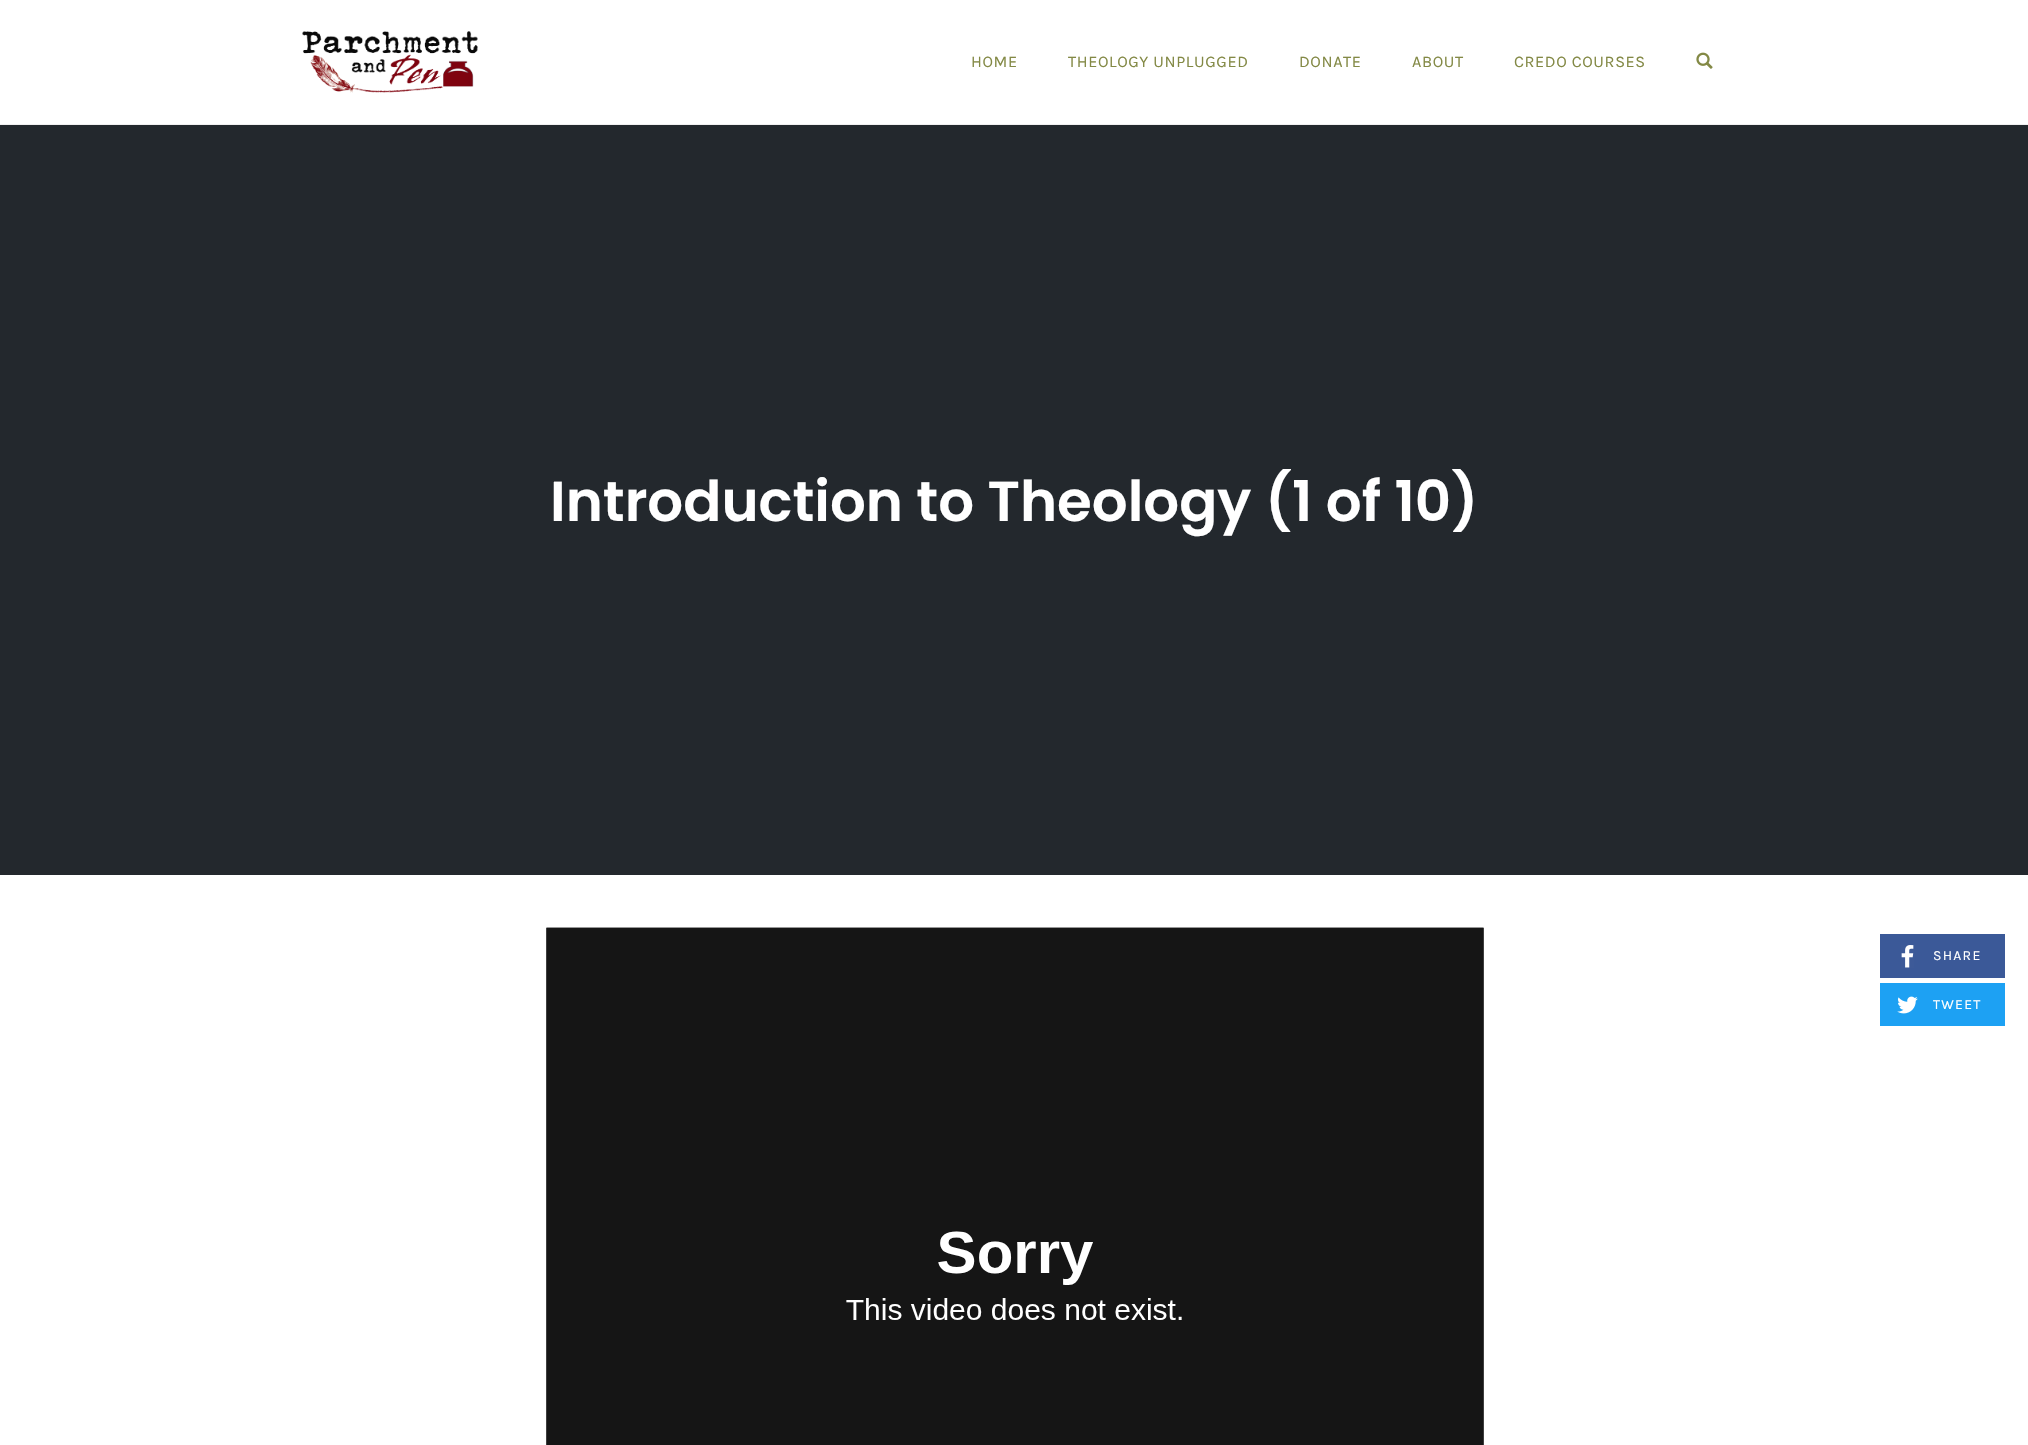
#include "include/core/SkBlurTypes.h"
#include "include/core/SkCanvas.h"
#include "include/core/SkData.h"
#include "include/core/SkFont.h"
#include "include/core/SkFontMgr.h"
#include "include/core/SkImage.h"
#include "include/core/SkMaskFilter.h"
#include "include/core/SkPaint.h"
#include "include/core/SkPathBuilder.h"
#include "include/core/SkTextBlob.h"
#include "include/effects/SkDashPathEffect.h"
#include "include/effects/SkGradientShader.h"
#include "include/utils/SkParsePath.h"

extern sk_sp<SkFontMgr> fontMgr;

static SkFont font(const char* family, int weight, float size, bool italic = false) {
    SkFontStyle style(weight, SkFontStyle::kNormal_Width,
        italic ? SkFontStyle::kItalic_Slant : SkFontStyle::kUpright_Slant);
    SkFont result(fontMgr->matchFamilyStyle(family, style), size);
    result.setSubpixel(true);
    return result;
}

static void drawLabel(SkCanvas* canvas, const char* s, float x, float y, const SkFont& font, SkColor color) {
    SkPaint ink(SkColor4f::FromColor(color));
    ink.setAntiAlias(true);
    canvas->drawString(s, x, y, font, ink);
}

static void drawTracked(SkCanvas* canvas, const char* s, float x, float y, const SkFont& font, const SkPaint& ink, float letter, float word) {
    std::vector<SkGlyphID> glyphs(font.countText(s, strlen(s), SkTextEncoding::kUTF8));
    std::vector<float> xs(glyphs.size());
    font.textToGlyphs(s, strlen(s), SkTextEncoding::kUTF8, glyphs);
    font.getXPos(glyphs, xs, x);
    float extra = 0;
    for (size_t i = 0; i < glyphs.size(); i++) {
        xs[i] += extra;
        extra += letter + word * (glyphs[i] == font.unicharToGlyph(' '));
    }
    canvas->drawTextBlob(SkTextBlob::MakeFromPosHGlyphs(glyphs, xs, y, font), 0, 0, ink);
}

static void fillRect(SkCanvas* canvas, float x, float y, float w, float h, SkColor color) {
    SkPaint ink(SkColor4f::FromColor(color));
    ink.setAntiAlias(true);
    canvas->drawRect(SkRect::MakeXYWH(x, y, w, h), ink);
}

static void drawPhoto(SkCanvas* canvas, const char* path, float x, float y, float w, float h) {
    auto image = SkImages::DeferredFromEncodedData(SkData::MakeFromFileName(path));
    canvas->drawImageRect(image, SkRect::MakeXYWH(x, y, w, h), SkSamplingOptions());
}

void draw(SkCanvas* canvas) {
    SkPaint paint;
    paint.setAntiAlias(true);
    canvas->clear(0xFFFFFFFF);
    fillRect(canvas, 0, 124, 2028, 1, 0xFFF0F0F0);
    drawPhoto(canvas, "assets/img1.png", 302, 31, 176, 62);
    SkFont font1 = font("Karla", 400, 16.25f);
    paint.setColor(0xFF838945);
    drawTracked(canvas, "HOME", 971, 67, font1, paint, 0.6f, 0);
    drawTracked(canvas, "THEOLOGY UNPLUGGED", 1068, 67, font1, paint, 0.6f, 0);
    drawTracked(canvas, "DONATE", 1299, 67, font1, paint, 0.6f, 0);
    drawTracked(canvas, "ABOUT", 1412, 67, font1, paint, 0.6f, 0);
    drawTracked(canvas, "CREDO COURSES", 1514, 67, font1, paint, 0.6f, 0);
    drawPhoto(canvas, "assets/img2.png", 1696, 52, 17, 17);
    fillRect(canvas, 0, 125, 2028, 750, 0xFF23282D);
    SkFont font2 = font("Poppins", 600, 56.25f);
    drawLabel(canvas, "Introduction to Theology (1 of 10)", 550, 521, font2, 0xFFFFFFFF);
    drawPhoto(canvas, "assets/img3.png", 546, 927, 938, 518);
    fillRect(canvas, 1880, 934, 125, 44, 0xFF3B5998);
    drawPhoto(canvas, "assets/img4.png", 1901, 945, 13, 23);
    SkFont font3 = font("Karla", 400, 14);
    paint.setColor(0xFFFFFFFF);
    drawTracked(canvas, "SHARE", 1933, 960, font3, paint, 1.25f, 0);
    fillRect(canvas, 1880, 983, 125, 43, 0xFF1DA1F3);
    drawPhoto(canvas, "assets/img5.png", 1897, 996, 21, 18);
    drawTracked(canvas, "TWEET", 1933, 1009, font3, paint, 1.25f, 0);
}
